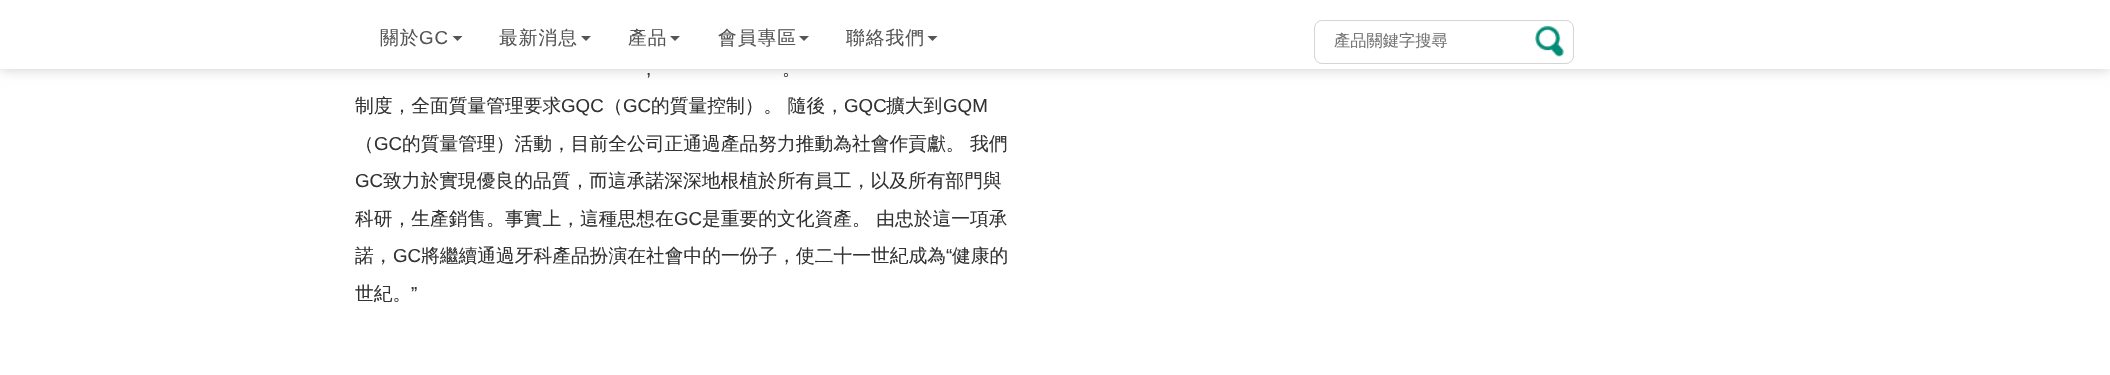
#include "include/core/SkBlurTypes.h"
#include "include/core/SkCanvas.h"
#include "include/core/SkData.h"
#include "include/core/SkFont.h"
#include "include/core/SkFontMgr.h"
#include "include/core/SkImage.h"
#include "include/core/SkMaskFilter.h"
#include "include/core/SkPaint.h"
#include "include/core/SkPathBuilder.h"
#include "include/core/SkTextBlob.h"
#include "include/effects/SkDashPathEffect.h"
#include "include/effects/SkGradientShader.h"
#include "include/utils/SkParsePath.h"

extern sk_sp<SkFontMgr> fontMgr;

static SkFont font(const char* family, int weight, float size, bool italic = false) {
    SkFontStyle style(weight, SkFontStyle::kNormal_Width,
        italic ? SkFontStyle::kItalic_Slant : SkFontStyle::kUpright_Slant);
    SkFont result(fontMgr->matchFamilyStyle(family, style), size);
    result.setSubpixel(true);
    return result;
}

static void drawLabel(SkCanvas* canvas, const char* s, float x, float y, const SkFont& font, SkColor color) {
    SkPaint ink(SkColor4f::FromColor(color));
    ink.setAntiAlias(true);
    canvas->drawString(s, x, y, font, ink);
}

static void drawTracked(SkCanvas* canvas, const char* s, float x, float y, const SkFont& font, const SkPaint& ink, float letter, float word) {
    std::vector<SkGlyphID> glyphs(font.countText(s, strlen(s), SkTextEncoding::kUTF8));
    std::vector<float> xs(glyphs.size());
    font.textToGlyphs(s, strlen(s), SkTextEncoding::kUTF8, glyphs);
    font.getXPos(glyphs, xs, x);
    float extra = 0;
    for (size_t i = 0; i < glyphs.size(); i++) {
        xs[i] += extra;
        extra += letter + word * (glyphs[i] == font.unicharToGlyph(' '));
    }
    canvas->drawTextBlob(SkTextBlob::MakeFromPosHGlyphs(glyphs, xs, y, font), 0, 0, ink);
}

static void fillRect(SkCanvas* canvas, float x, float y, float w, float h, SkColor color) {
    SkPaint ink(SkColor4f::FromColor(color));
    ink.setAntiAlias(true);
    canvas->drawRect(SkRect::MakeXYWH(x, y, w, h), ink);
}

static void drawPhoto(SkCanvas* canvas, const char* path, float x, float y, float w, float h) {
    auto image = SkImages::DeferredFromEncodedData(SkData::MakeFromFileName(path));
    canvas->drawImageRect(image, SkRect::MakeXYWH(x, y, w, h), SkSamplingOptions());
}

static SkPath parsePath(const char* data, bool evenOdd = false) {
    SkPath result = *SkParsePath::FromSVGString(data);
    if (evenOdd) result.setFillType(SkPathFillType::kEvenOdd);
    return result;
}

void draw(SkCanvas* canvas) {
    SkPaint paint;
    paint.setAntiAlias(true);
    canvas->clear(0xFFFFFFFF);
    paint.setColor(0xFFCCCCCC);
    paint.setMaskFilter(SkMaskFilter::MakeBlur(kNormal_SkBlurStyle, 6));
    canvas->drawRect(SkRect::MakeXYWH(0, 0, 2110, 69), paint);
    paint.setMaskFilter(nullptr);
    fillRect(canvas, 0, 0, 2110, 69, 0xFFFFFFFF);
    SkFont font1 = font("WenQuanYi Zen Hei", 500, 18.75f);
    paint.setColor(0xFF555555);
    drawTracked(canvas, "關於", 380, 44, font1, paint, 1, 0);
    SkFont font2 = font("Liberation Sans", 400, 18.75f);
    drawTracked(canvas, "GC", 419, 44, font2, paint, 1, 0);
    canvas->drawPath(parsePath("M452.5 36H462.5L457.5 41Z"), paint);
    drawTracked(canvas, "最新消息", 499, 44, font1, paint, 1, 0);
    canvas->drawPath(parsePath("M581 36H591L586 41Z"), paint);
    drawTracked(canvas, "產品", 628, 44, font1, paint, 1, 0);
    canvas->drawPath(parsePath("M670 36H680L675 41Z"), paint);
    drawTracked(canvas, "會員專區", 718, 44, font1, paint, 1, 0);
    canvas->drawPath(parsePath("M799 36H809L804 41Z"), paint);
    drawTracked(canvas, "聯絡我們", 846, 44, font1, paint, 1, 0);
    canvas->drawPath(parsePath("M927.5 36H937.5L932.5 41Z"), paint);
    paint.setStroke(true);
    paint.setStrokeWidth(1);
    paint.setColor(0xFFD4D4D4);
    canvas->drawRoundRect(SkRect::MakeXYWH(1314.5f, 20.5f, 259, 43), 7.5f, 7.5f, paint);
    SkFont font3 = font("WenQuanYi Zen Hei", 500, 16.25f);
    drawLabel(canvas, "產品關鍵字搜尋", 1334, 46, font3, 0xFF757575);
    drawPhoto(canvas, "assets/img1.png", 1535, 26, 29, 31);
    drawLabel(canvas, ",", 646, 75, font2, 0xFF333333);
    drawLabel(canvas, "。", 782, 75, font1, 0xFF333333);
    drawLabel(canvas, "制度，全面質量管理要求", 355, 112, font1, 0xFF333333);
    drawLabel(canvas, "GQC", 561, 112, font2, 0xFF333333);
    drawLabel(canvas, "（", 604, 112, font1, 0xFF333333);
    drawLabel(canvas, "GC", 623, 112, font2, 0xFF333333);
    drawLabel(canvas, "的質量控制）。 隨後，", 651, 112, font1, 0xFF333333);
    drawLabel(canvas, "GQC", 844, 112, font2, 0xFF333333);
    drawLabel(canvas, "擴大到", 886, 112, font1, 0xFF333333);
    drawLabel(canvas, "GQM", 943, 112, font2, 0xFF333333);
    drawLabel(canvas, "（", 355, 150, font1, 0xFF333333);
    drawLabel(canvas, "GC", 374, 150, font2, 0xFF333333);
    drawLabel(canvas, "的質量管理）活動，目前全公司正通過產品努力推動為社會作貢獻。 我們", 402, 150, font1, 0xFF333333);
    drawLabel(canvas, "GC", 355, 187, font2, 0xFF333333);
    drawLabel(canvas, "致力於實現優良的品質，而這承諾深深地根植於所有員工，以及所有部門與", 383, 187, font1, 0xFF333333);
    drawLabel(canvas, "科研，生產銷售。事實上，這種思想在", 355, 225, font1, 0xFF333333);
    drawLabel(canvas, "GC", 674, 225, font2, 0xFF333333);
    drawLabel(canvas, "是重要的文化資產。 由忠於這一項承", 702, 225, font1, 0xFF333333);
    drawLabel(canvas, "諾，", 355, 262, font1, 0xFF333333);
    drawLabel(canvas, "GC", 393, 262, font2, 0xFF333333);
    drawLabel(canvas, "將繼續通過牙科產品扮演在社會中的一份子，使二十一世紀成為", 421, 262, font1, 0xFF333333);
    drawLabel(canvas, "“", 946, 262, font2, 0xFF333333);
    drawLabel(canvas, "健康的", 952, 262, font1, 0xFF333333);
    drawLabel(canvas, "世紀。", 355, 300, font1, 0xFF333333);
    drawLabel(canvas, "”", 411, 300, font2, 0xFF333333);
}
